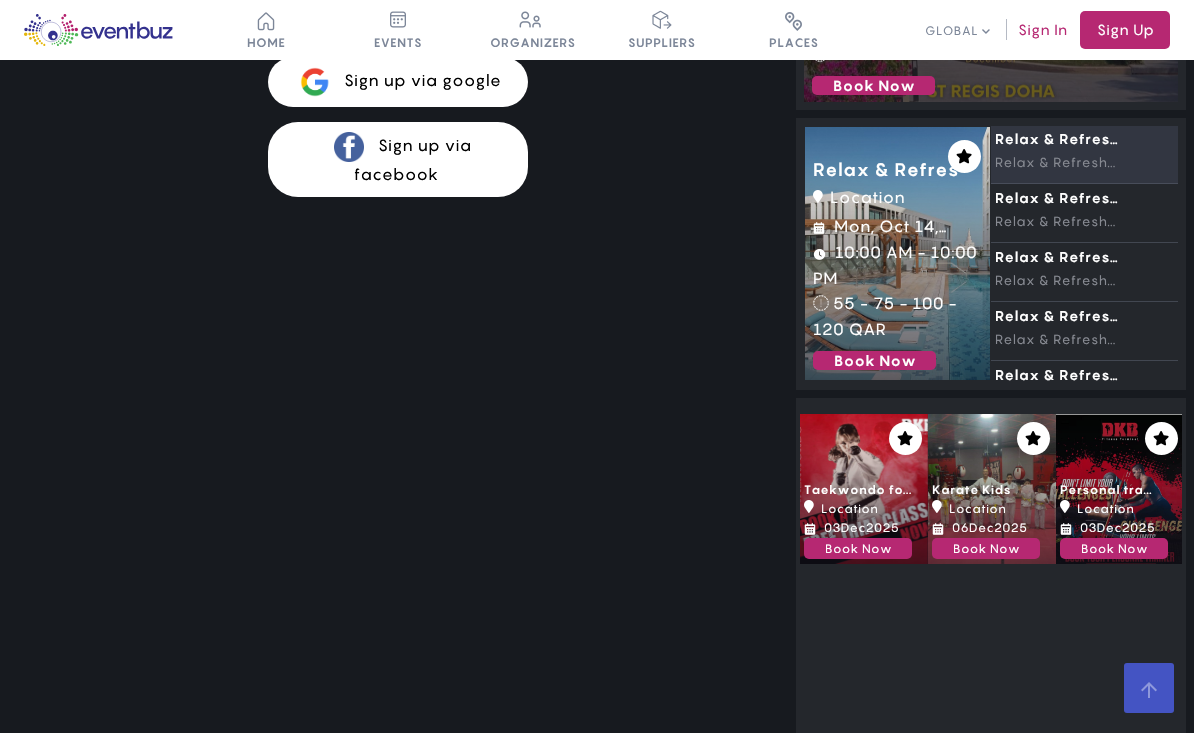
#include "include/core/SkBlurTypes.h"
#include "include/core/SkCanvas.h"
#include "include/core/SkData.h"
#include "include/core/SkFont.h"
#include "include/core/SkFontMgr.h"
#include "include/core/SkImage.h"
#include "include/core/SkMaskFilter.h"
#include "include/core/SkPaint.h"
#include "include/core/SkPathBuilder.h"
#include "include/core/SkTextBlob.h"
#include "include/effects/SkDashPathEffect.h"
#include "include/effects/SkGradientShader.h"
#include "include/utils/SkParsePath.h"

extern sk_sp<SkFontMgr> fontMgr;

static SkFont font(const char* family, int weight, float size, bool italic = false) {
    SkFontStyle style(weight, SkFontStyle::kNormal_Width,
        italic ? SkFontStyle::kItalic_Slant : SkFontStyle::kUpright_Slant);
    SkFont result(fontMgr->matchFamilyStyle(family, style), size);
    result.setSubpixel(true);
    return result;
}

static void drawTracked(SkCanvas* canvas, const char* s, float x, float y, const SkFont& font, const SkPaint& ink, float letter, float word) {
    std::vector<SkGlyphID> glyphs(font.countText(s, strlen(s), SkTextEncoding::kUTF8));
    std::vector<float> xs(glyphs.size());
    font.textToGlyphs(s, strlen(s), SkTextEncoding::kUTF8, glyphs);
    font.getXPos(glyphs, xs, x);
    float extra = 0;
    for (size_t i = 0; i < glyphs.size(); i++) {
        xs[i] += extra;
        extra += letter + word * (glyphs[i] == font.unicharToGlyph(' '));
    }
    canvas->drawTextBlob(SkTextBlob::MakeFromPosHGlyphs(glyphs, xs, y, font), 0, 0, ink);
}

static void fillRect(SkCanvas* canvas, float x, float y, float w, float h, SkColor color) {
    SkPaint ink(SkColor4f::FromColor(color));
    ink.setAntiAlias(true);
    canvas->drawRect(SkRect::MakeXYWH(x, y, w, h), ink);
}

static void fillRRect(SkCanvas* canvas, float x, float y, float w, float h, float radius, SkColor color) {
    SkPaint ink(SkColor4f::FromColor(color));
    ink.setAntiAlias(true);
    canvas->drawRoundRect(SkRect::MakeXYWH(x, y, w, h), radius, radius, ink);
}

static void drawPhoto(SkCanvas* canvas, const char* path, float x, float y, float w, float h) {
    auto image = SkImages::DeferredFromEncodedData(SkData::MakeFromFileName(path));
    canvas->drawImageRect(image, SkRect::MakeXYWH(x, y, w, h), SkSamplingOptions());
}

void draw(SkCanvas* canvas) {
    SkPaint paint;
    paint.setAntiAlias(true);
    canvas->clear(0xFF171A1F);
    fillRRect(canvas, 268, 57, 260, 50, 25, 0xFFFFFFFF);
    fillRect(canvas, 0, 0, 1194, 60, 0xFFFFFFFF);
    drawPhoto(canvas, "assets/img1.png", 24, 14, 149, 32);
    SkFont font1 = font("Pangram", 400, 12);
    paint.setColor(0xFF7C8698);
    drawTracked(canvas, "GLOBAL", 925, 35, font1, paint, 0.5f, 0);
    drawPhoto(canvas, "assets/img2.png", 982, 29, 8, 5);
    fillRect(canvas, 1006, 19, 1, 21, 0xFFB5BAC4);
    SkFont font2 = font("Pangram", 400, 14.5f);
    paint.setColor(0xFFB62872);
    drawTracked(canvas, "Sign In", 1018, 35, font2, paint, 0.5f, 0);
    fillRRect(canvas, 1080, 11, 90, 38, 5, 0xFFB62872);
    paint.setColor(0xFFFFFFFF);
    drawTracked(canvas, "Sign Up", 1097, 35, font2, paint, 0.5f, 0);
    drawPhoto(canvas, "assets/img3.png", 257, 12, 18, 19);
    SkFont font3 = font("Pangram", 700, 12);
    paint.setColor(0xFF7C8698);
    drawTracked(canvas, "HOME", 247, 47, font3, paint, 0.5f, 0);
    drawPhoto(canvas, "assets/img4.png", 390, 11, 16, 17);
    drawTracked(canvas, "EVENTS", 374, 47, font3, paint, 0.5f, 0);
    drawPhoto(canvas, "assets/img5.png", 519, 11, 22, 17);
    drawTracked(canvas, "ORGANIZERS", 490, 47, font3, paint, 0.5f, 0);
    drawPhoto(canvas, "assets/img6.png", 652, 10, 20, 19);
    drawTracked(canvas, "SUPPLIERS", 628, 47, font3, paint, 0.5f, 0);
    drawPhoto(canvas, "assets/img7.png", 785, 12, 17, 19);
    drawTracked(canvas, "PLACES", 769, 47, font3, paint, 0.5f, 0);
    drawPhoto(canvas, "assets/img8.png", 300, 67, 29, 30);
    SkFont font4 = font("Pangram", 400, 16);
    paint.setColor(0xFF000000);
    drawTracked(canvas, "Sign up via google", 344, 86, font4, paint, 0.5f, 0);
    fillRRect(canvas, 268, 122, 260, 75, 30, 0xFFFFFFFF);
    drawPhoto(canvas, "assets/img9.png", 334, 132, 30, 30);
    drawTracked(canvas, "Sign up via", 378, 151, font4, paint, 0.5f, 0);
    drawTracked(canvas, "facebook", 354, 180, font4, paint, 0.5f, 0);
    fillRect(canvas, 796, 60, 390, 50, 0xFF24272C);
    drawPhoto(canvas, "assets/img10.png", 804, 60, 374, 42);
    drawPhoto(canvas, "assets/img11.png", 815, 60, 10, 2);
    fillRRect(canvas, 812, 76, 123, 19, 5, 0xFFB62872);
    SkFont font5 = font("Pangram", 700, 14.5f);
    paint.setColor(0xFFFFFFFF);
    drawTracked(canvas, "Book Now", 833, 91, font5, paint, 0.5f, 0);
    fillRect(canvas, 796, 118, 390, 272, 0xFF24272C);
    drawPhoto(canvas, "assets/img12.png", 805, 127, 185, 253);
    canvas->drawCircle(964.5f, 156.5f, 16.5f, paint);
    SkFont font6 = font("Pangram", 700, 18);
    drawTracked(canvas, "Relax & Refres", 813, 176, font6, paint, 0.5f, 0);
    drawPhoto(canvas, "assets/img13.png", 956, 149, 16, 15);
    drawPhoto(canvas, "assets/img14.png", 813, 190, 10, 13);
    drawTracked(canvas, "Location", 830, 203, font4, paint, 0.5f, 0);
    drawPhoto(canvas, "assets/img15.png", 813, 222, 12, 12);
    drawTracked(canvas, "Mon, Oct 14,…", 834, 232, font4, paint, 0.5f, 0);
    drawPhoto(canvas, "assets/img16.png", 813, 248, 13, 12);
    drawTracked(canvas, "10:00 AM - 10:00", 835, 258, font4, paint, 0.5f, 0);
    drawTracked(canvas, "PM", 813, 284, font4, paint, 0.5f, 0);
    drawPhoto(canvas, "assets/img17.png", 813, 295, 16, 16);
    drawTracked(canvas, "55 - 75 - 100 -", 833, 309, font4, paint, 0.5f, 0);
    drawTracked(canvas, "120 QAR", 813, 335, font4, paint, 0.5f, 0);
    fillRRect(canvas, 813, 351, 123, 19, 5, 0xFFB62872);
    drawTracked(canvas, "Book Now", 834, 366, font5, paint, 0.5f, 0);
    fillRect(canvas, 991, 126, 187, 57, 0xFF323641);
    fillRect(canvas, 991, 183, 187, 1, 0xFF484D5A);
    SkFont font7 = font("Pangram", 700, 14);
    drawTracked(canvas, "Relax & Refres…", 995, 144, font7, paint, 0.5f, 0);
    SkFont font8 = font("Pangram", 400, 13);
    paint.setColor(0xFF878A92);
    drawTracked(canvas, "Relax & Refresh...", 995, 167, font8, paint, 0.5f, 0);
    fillRect(canvas, 991, 242, 187, 1, 0xFF424751);
    paint.setColor(0xFFFFFFFF);
    drawTracked(canvas, "Relax & Refres…", 995, 203, font7, paint, 0.5f, 0);
    paint.setColor(0xFF878A92);
    drawTracked(canvas, "Relax & Refresh...", 995, 226, font8, paint, 0.5f, 0);
    fillRect(canvas, 991, 301, 187, 1, 0xFF424751);
    paint.setColor(0xFFFFFFFF);
    drawTracked(canvas, "Relax & Refres…", 995, 262, font7, paint, 0.5f, 0);
    paint.setColor(0xFF878A92);
    drawTracked(canvas, "Relax & Refresh...", 995, 285, font8, paint, 0.5f, 0);
    fillRect(canvas, 991, 360, 187, 1, 0xFF424751);
    paint.setColor(0xFFFFFFFF);
    drawTracked(canvas, "Relax & Refres…", 995, 321, font7, paint, 0.5f, 0);
    paint.setColor(0xFF878A92);
    drawTracked(canvas, "Relax & Refresh...", 995, 344, font8, paint, 0.5f, 0);
    paint.setColor(0xFFFFFFFF);
    drawTracked(canvas, "Relax & Refres…", 995, 380, font7, paint, 0.5f, 0);
    fillRect(canvas, 796, 398, 390, 335, 0xFF24272C);
    drawPhoto(canvas, "assets/img18.png", 800, 414, 128, 150);
    {
        const SkColor colors[] = {0x0014121D, 0xAB14121D};
        const float stops[] = {0, 1};
        const SkPoint ends[] = {{864, 414}, {864, 564}};
        paint.setShader(SkGradientShader::MakeLinear(ends, colors, stops, 2, SkTileMode::kClamp));
        paint.setAlpha(255);
    }
    canvas->drawRect(SkRect::MakeXYWH(800, 419, 128, 145), paint);
    paint.setShader(nullptr);
    paint.setColor(0xFFFFFFFF);
    canvas->drawCircle(905.5f, 438.5f, 16.5f, paint);
    drawPhoto(canvas, "assets/img13.png", 897, 431, 16, 15);
    drawTracked(canvas, "Taekwondo fo...", 804, 494, font3, paint, 0.5f, 0);
    drawPhoto(canvas, "assets/img19.png", 804, 500, 10, 13);
    drawTracked(canvas, "Location", 821, 513, font1, paint, 0.5f, 0);
    drawPhoto(canvas, "assets/img20.png", 804, 523, 12, 12);
    drawTracked(canvas, "03Dec2025", 824, 532, font1, paint, 0.5f, 0);
    fillRRect(canvas, 804, 538, 108, 21, 5, 0xFFB62872);
    drawTracked(canvas, "Book Now", 825, 553, font1, paint, 0.5f, 0);
    drawPhoto(canvas, "assets/img21.png", 928, 414, 128, 150);
    canvas->drawCircle(1033.5f, 438.5f, 16.5f, paint);
    drawPhoto(canvas, "assets/img13.png", 1025, 431, 16, 15);
    drawTracked(canvas, "Karate Kids", 932, 494, font3, paint, 0.5f, 0);
    drawPhoto(canvas, "assets/img22.png", 932, 500, 10, 13);
    drawTracked(canvas, "Location", 949, 513, font1, paint, 0.5f, 0);
    drawPhoto(canvas, "assets/img23.png", 932, 523, 12, 12);
    drawTracked(canvas, "06Dec2025", 952, 532, font1, paint, 0.5f, 0);
    fillRRect(canvas, 932, 538, 108, 21, 5, 0xFFB62872);
    drawTracked(canvas, "Book Now", 953, 553, font1, paint, 0.5f, 0);
    drawPhoto(canvas, "assets/img24.png", 1056, 414, 126, 150);
    canvas->drawCircle(1161.5f, 438.5f, 16.5f, paint);
    drawPhoto(canvas, "assets/img13.png", 1153, 431, 16, 15);
    drawTracked(canvas, "Personal tra...", 1060, 494, font3, paint, 0.5f, 0);
    drawPhoto(canvas, "assets/img25.png", 1060, 500, 10, 13);
    drawTracked(canvas, "Location", 1077, 513, font1, paint, 0.5f, 0);
    drawPhoto(canvas, "assets/img26.png", 1060, 523, 12, 12);
    drawTracked(canvas, "03Dec2025", 1080, 532, font1, paint, 0.5f, 0);
    fillRRect(canvas, 1060, 538, 108, 21, 5, 0xFFB62872);
    drawTracked(canvas, "Book Now", 1081, 553, font1, paint, 0.5f, 0);
    fillRRect(canvas, 1124, 663, 50, 50, 3, 0xFF4454C3);
    drawPhoto(canvas, "assets/img27.png", 1141, 682, 16, 16);
}
